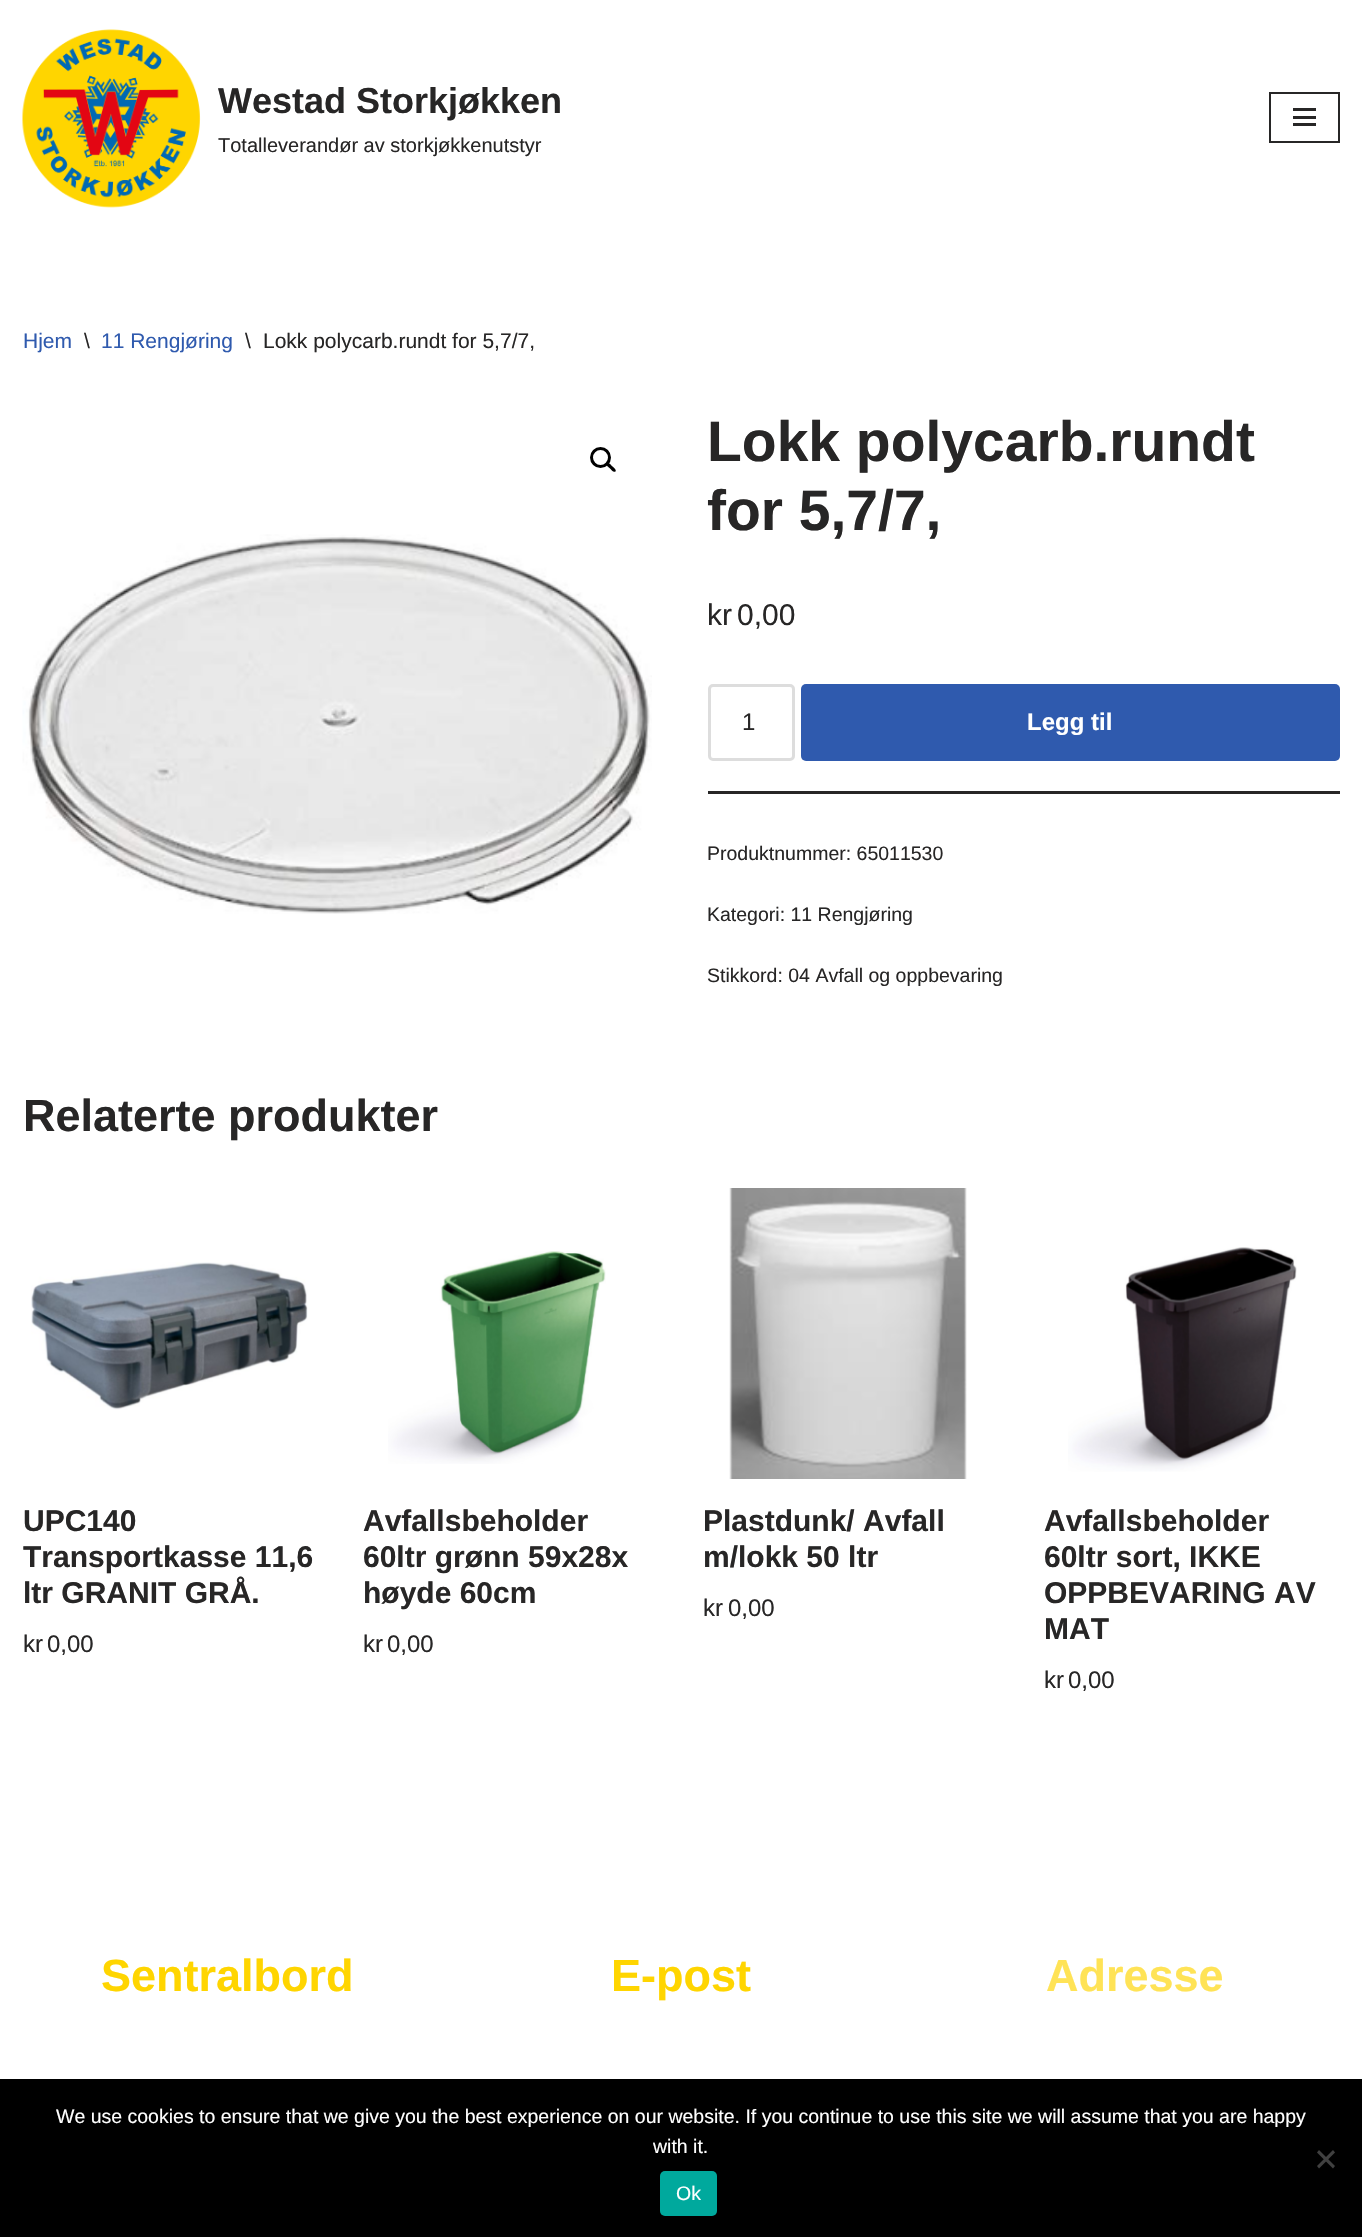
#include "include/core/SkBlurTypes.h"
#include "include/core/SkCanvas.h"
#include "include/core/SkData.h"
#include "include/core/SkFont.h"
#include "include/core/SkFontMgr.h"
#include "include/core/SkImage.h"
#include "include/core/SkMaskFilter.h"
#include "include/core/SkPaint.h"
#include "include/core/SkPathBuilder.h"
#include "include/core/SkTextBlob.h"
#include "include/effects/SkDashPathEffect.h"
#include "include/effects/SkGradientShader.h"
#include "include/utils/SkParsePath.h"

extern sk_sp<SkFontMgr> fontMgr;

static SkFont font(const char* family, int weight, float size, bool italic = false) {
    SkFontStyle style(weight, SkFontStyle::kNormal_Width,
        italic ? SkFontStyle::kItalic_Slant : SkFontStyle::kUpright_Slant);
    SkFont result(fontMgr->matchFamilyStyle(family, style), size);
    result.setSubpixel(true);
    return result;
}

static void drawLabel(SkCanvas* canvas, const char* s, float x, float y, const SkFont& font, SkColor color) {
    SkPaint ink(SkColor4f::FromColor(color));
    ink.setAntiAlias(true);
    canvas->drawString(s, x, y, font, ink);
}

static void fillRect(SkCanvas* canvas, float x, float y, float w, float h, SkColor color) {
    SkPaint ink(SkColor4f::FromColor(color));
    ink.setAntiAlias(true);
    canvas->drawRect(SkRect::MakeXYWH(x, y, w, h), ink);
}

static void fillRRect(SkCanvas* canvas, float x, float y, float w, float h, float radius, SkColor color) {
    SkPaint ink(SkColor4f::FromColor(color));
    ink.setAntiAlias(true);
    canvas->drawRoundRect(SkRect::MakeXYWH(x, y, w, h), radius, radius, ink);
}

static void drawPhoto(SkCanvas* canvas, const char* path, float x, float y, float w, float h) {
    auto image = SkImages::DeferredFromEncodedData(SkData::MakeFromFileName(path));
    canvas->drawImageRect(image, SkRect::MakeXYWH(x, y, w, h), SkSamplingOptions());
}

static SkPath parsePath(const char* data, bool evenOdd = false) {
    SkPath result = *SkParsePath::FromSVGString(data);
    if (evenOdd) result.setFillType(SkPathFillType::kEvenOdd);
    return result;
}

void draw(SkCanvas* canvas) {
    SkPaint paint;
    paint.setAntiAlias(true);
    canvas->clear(0xFFFFFFFF);
    drawPhoto(canvas, "assets/img1.png", 22, 29, 179, 179);
    SkFont font1 = font("Liberation Sans", 700, 36);
    drawLabel(canvas, "Westad Storkjøkken", 218, 113, font1, 0xFF272626);
    SkFont font2 = font("Liberation Sans", 400, 20);
    drawLabel(canvas, "Totalleverandør av storkjøkkenutstyr", 218, 152, font2, 0xFF272626);
    paint.setStroke(true);
    paint.setStrokeWidth(2);
    paint.setColor(0xFF272626);
    canvas->drawRect(SkRect::MakeXYWH(1270, 93, 69, 49), paint);
    fillRect(canvas, 1293, 108, 23, 3, 0xFF272626);
    fillRect(canvas, 1293, 116, 23, 3, 0xFF272626);
    fillRect(canvas, 1293, 123, 23, 3, 0xFF272626);
    SkFont font3 = font("Liberation Sans", 400, 21);
    drawLabel(canvas, "Hjem", 23, 348, font3, 0xFF2F5AAE);
    drawLabel(canvas, "\\", 84, 348, font3, 0xFF272626);
    drawLabel(canvas, "11 Rengjøring", 101, 348, font3, 0xFF2F5AAE);
    drawLabel(canvas, "\\", 245, 348, font3, 0xFF272626);
    drawLabel(canvas, "Lokk polycarb.rundt for 5,7/7,", 263, 348, font3, 0xFF272626);
    paint.setStrokeWidth(3);
    paint.setColor(0xFF000000);
    canvas->drawCircle(600.5f, 457.5f, 9, paint);
    paint.setStroke(false);
    canvas->drawPath(parsePath("M607 463C608.5 461.5 611.5 465.5 612 466C613 467 617 470 615.5 471.5C613.5 473 611 469.5 610 468.5C609 467.5 605 465 607 463Z"), paint);
    drawPhoto(canvas, "assets/img2.png", 22, 534, 630, 380);
    SkFont font4 = font("Liberation Sans", 700, 57);
    drawLabel(canvas, "Lokk polycarb.rundt", 707, 461, font4, 0xFF272626);
    drawLabel(canvas, "for 5,7/7,", 707, 530, font4, 0xFF272626);
    SkFont font5 = font("Liberation Sans", 400, 30);
    drawLabel(canvas, "kr", 707, 625, font5, 0xFF272626);
    drawLabel(canvas, "0,00", 737, 625, font5, 0xFF272626);
    fillRect(canvas, 708, 791, 632, 3, 0xFF272626);
    paint.setStroke(true);
    paint.setColor(0xFFDDDDDD);
    canvas->drawRoundRect(SkRect::MakeXYWH(709.5f, 685.5f, 84, 74), 3.5f, 3.5f, paint);
    SkFont font6 = font("Liberation Sans", 400, 24);
    drawLabel(canvas, "1", 742, 730, font6, 0xFF272626);
    fillRRect(canvas, 801, 684, 539, 77, 5, 0xFF2F5AAE);
    SkFont font7 = font("Liberation Sans", 700, 24);
    drawLabel(canvas, "Legg til", 1027, 730, font7, 0xFFFFFFFF);
    SkFont font8 = font("Liberation Sans", 400, 19.5f);
    drawLabel(canvas, "Produktnummer: 65011530", 707, 860, font8, 0xFF272626);
    drawLabel(canvas, "Kategori: 11 Rengjøring", 707, 921, font8, 0xFF272626);
    drawLabel(canvas, "Stikkord: 04 Avfall og oppbevaring", 707, 982, font8, 0xFF272626);
    SkFont font9 = font("Liberation Sans", 700, 45);
    drawLabel(canvas, "Relaterte produkter", 23, 1131, font9, 0xFF272626);
    drawPhoto(canvas, "assets/img3.png", 31, 1262, 277, 148);
    SkFont font10 = font("Liberation Sans", 700, 30);
    drawLabel(canvas, "UPC140", 23, 1531, font10, 0xFF272626);
    drawLabel(canvas, "Transportkasse 11,6", 23, 1567, font10, 0xFF272626);
    drawLabel(canvas, "ltr GRANIT GRÅ.", 23, 1603, font10, 0xFF272626);
    drawLabel(canvas, "kr", 23, 1652, font6, 0xFF272626);
    drawLabel(canvas, "0,00", 47, 1652, font6, 0xFF272626);
    drawPhoto(canvas, "assets/img4.png", 388, 1251, 218, 213);
    drawLabel(canvas, "Avfallsbeholder", 363, 1531, font10, 0xFF272626);
    drawLabel(canvas, "60ltr grønn 59x28x", 363, 1567, font10, 0xFF272626);
    drawLabel(canvas, "høyde 60cm", 363, 1603, font10, 0xFF272626);
    drawLabel(canvas, "kr", 363, 1652, font6, 0xFF272626);
    drawLabel(canvas, "0,00", 387, 1652, font6, 0xFF272626);
    drawPhoto(canvas, "assets/img5.png", 729, 1188, 238, 291);
    drawLabel(canvas, "Plastdunk/ Avfall", 703, 1531, font10, 0xFF272626);
    drawLabel(canvas, "m/lokk 50 ltr", 703, 1567, font10, 0xFF272626);
    drawLabel(canvas, "kr", 703, 1616, font6, 0xFF272626);
    drawLabel(canvas, "0,00", 728, 1616, font6, 0xFF272626);
    drawPhoto(canvas, "assets/img6.png", 1068, 1247, 229, 225);
    drawLabel(canvas, "Avfallsbeholder", 1044, 1531, font10, 0xFF272626);
    drawLabel(canvas, "60ltr sort, IKKE", 1044, 1567, font10, 0xFF272626);
    drawLabel(canvas, "OPPBEVARING AV", 1044, 1603, font10, 0xFF272626);
    drawLabel(canvas, "MAT", 1044, 1639, font10, 0xFF272626);
    drawLabel(canvas, "kr", 1044, 1688, font6, 0xFF272626);
    drawLabel(canvas, "0,00", 1068, 1688, font6, 0xFF272626);
    drawLabel(canvas, "Sentralbord", 101, 1991, font9, 0xFFFFD500);
    drawLabel(canvas, "E-post", 611, 1991, font9, 0xFFFFD500);
    drawLabel(canvas, "Adresse", 1046, 1991, font9, 0xFFFFE356);
    fillRect(canvas, 0, 2079, 1362, 158, 0xFF000000);
    drawLabel(canvas, "We use cookies to ensure that we give you the best experience on our website. If you continue to use this site we will assume that you are happy", 56, 2123, font8, 0xFFFFFFFF);
    drawLabel(canvas, "with it.", 653, 2153, font8, 0xFFFFFFFF);
    paint.setStroke(false);
    paint.setColor(0xFF404040);
    canvas->drawPath(parsePath("M1333 2150L1335 2152.5L1319 2168.5L1317 2166Z"), paint);
    canvas->drawPath(parsePath("M1317 2152.5L1319 2150L1335 2166L1333 2168.5Z"), paint);
    fillRRect(canvas, 660, 2171, 57, 45, 5, 0xFF00A99D);
    drawLabel(canvas, "Ok", 676, 2200, font8, 0xFFFFFFFF);
}
